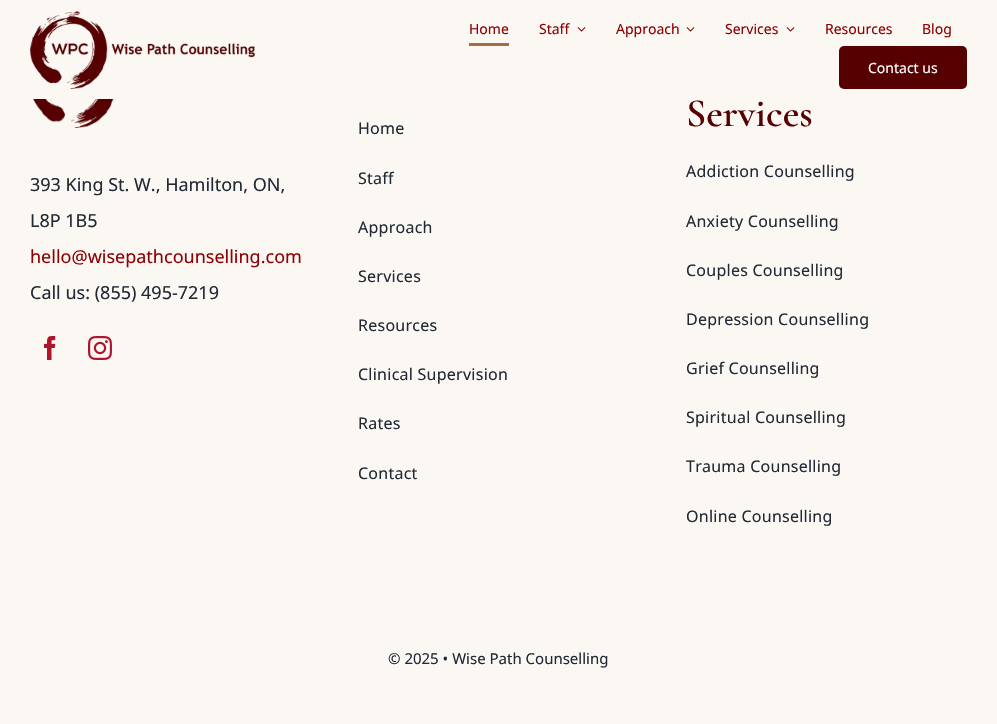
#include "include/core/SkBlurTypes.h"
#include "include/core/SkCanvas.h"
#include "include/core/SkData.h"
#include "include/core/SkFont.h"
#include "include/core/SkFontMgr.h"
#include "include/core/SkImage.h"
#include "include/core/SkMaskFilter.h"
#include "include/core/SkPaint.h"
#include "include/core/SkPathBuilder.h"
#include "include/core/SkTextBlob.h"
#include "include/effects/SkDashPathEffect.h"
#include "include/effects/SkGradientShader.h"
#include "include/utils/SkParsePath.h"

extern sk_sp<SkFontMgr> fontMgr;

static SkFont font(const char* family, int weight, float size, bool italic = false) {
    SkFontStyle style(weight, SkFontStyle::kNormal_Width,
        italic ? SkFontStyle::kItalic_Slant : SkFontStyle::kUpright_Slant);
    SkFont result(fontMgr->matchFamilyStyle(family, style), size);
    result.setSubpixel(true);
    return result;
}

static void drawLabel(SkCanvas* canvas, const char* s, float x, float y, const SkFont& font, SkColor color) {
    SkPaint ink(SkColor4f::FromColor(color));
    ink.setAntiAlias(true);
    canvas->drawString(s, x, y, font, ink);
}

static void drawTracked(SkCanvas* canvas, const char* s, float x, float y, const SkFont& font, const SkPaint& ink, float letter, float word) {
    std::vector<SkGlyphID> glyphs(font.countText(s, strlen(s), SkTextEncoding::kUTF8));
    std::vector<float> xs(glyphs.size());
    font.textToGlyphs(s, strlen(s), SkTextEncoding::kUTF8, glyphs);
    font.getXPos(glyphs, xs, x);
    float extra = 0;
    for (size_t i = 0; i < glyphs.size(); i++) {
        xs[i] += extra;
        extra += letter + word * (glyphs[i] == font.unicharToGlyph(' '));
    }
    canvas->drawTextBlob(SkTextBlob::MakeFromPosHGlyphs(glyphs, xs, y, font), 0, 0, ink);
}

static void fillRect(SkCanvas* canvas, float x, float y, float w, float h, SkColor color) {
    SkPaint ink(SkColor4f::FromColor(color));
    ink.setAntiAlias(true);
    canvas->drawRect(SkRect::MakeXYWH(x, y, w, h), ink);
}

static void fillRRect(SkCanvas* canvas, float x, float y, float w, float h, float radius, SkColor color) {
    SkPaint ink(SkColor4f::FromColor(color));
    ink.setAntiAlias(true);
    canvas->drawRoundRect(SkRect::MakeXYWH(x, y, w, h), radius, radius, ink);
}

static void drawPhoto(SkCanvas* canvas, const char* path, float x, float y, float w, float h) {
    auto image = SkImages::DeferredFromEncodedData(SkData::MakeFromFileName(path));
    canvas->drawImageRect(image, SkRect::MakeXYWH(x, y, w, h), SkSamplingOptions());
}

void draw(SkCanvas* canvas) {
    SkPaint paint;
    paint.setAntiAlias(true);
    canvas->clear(0xFFFBF7F3);
    drawPhoto(canvas, "assets/img1.png", 30, 11, 225, 78);
    SkFont font1 = font("Noto Sans", 400, 14);
    drawLabel(canvas, "Home", 469, 34, font1, 0xFF8F0002);
    fillRect(canvas, 469, 43, 40, 3, 0xFFA66D3F);
    drawLabel(canvas, "Staff", 539, 34, font1, 0xFF8F0002);
    drawPhoto(canvas, "assets/img2.png", 577, 27, 9, 5);
    drawLabel(canvas, "Approach", 616, 34, font1, 0xFF8F0002);
    drawPhoto(canvas, "assets/img2.png", 686, 27, 9, 5);
    drawLabel(canvas, "Services", 725, 34, font1, 0xFF8F0002);
    drawPhoto(canvas, "assets/img2.png", 786, 27, 9, 5);
    drawLabel(canvas, "Resources", 825, 34, font1, 0xFF8F0002);
    drawLabel(canvas, "Blog", 922, 34, font1, 0xFF8F0002);
    fillRRect(canvas, 839, 46, 128, 43, 5, 0xFF570001);
    drawLabel(canvas, "Contact us", 868, 73, font1, 0xFFFFFFFF);
    drawPhoto(canvas, "assets/img3.png", 33, 99, 81, 29);
    SkFont font2 = font("Noto Sans", 400, 18);
    drawLabel(canvas, "393 King St. W., Hamilton, ON,", 30, 191, font2, 0xFF212934);
    drawLabel(canvas, "L8P 1B5", 30, 227, font2, 0xFF212934);
    drawLabel(canvas, "hello@wisepathcounselling.com", 30, 263, font2, 0xFF8F0002);
    drawLabel(canvas, "Call us: (855) 495-7219", 30, 299, font2, 0xFF212934);
    drawPhoto(canvas, "assets/img4.png", 44, 336, 12, 24);
    drawPhoto(canvas, "assets/img5.png", 88, 336, 24, 24);
    SkFont font3 = font("Noto Sans", 400, 16);
    paint.setColor(0xFF212934);
    drawTracked(canvas, "Home", 358, 134, font3, paint, 0.25f, 0);
    drawTracked(canvas, "Staff", 358, 184, font3, paint, 0.25f, 0);
    drawTracked(canvas, "Approach", 358, 233, font3, paint, 0.25f, 0);
    drawTracked(canvas, "Services", 358, 282, font3, paint, 0.25f, 0);
    drawTracked(canvas, "Resources", 358, 331, font3, paint, 0.25f, 0);
    drawTracked(canvas, "Clinical Supervision", 358, 380, font3, paint, 0.25f, 0);
    drawTracked(canvas, "Rates", 358, 429, font3, paint, 0.25f, 0);
    drawTracked(canvas, "Contact", 358, 479, font3, paint, 0.25f, 0);
    SkFont font4 = font("Cormorant Garamond", 600, 40);
    drawLabel(canvas, "Services", 686, 126, font4, 0xFF570001);
    drawTracked(canvas, "Addiction Counselling", 686, 177, font3, paint, 0.25f, 0);
    drawTracked(canvas, "Anxiety Counselling", 686, 227, font3, paint, 0.25f, 0);
    drawTracked(canvas, "Couples Counselling", 686, 276, font3, paint, 0.25f, 0);
    drawTracked(canvas, "Depression Counselling", 686, 325, font3, paint, 0.25f, 0);
    drawTracked(canvas, "Grief Counselling", 686, 374, font3, paint, 0.25f, 0);
    drawTracked(canvas, "Spiritual Counselling", 686, 423, font3, paint, 0.25f, 0);
    drawTracked(canvas, "Trauma Counselling", 686, 472, font3, paint, 0.25f, 0);
    drawTracked(canvas, "Online Counselling", 686, 522, font3, paint, 0.25f, 0);
    SkFont font5 = font("Noto Sans", 400, 15);
    drawLabel(canvas, "© 2025 • Wise Path Counselling", 388, 664, font5, 0xFF212934);
}
